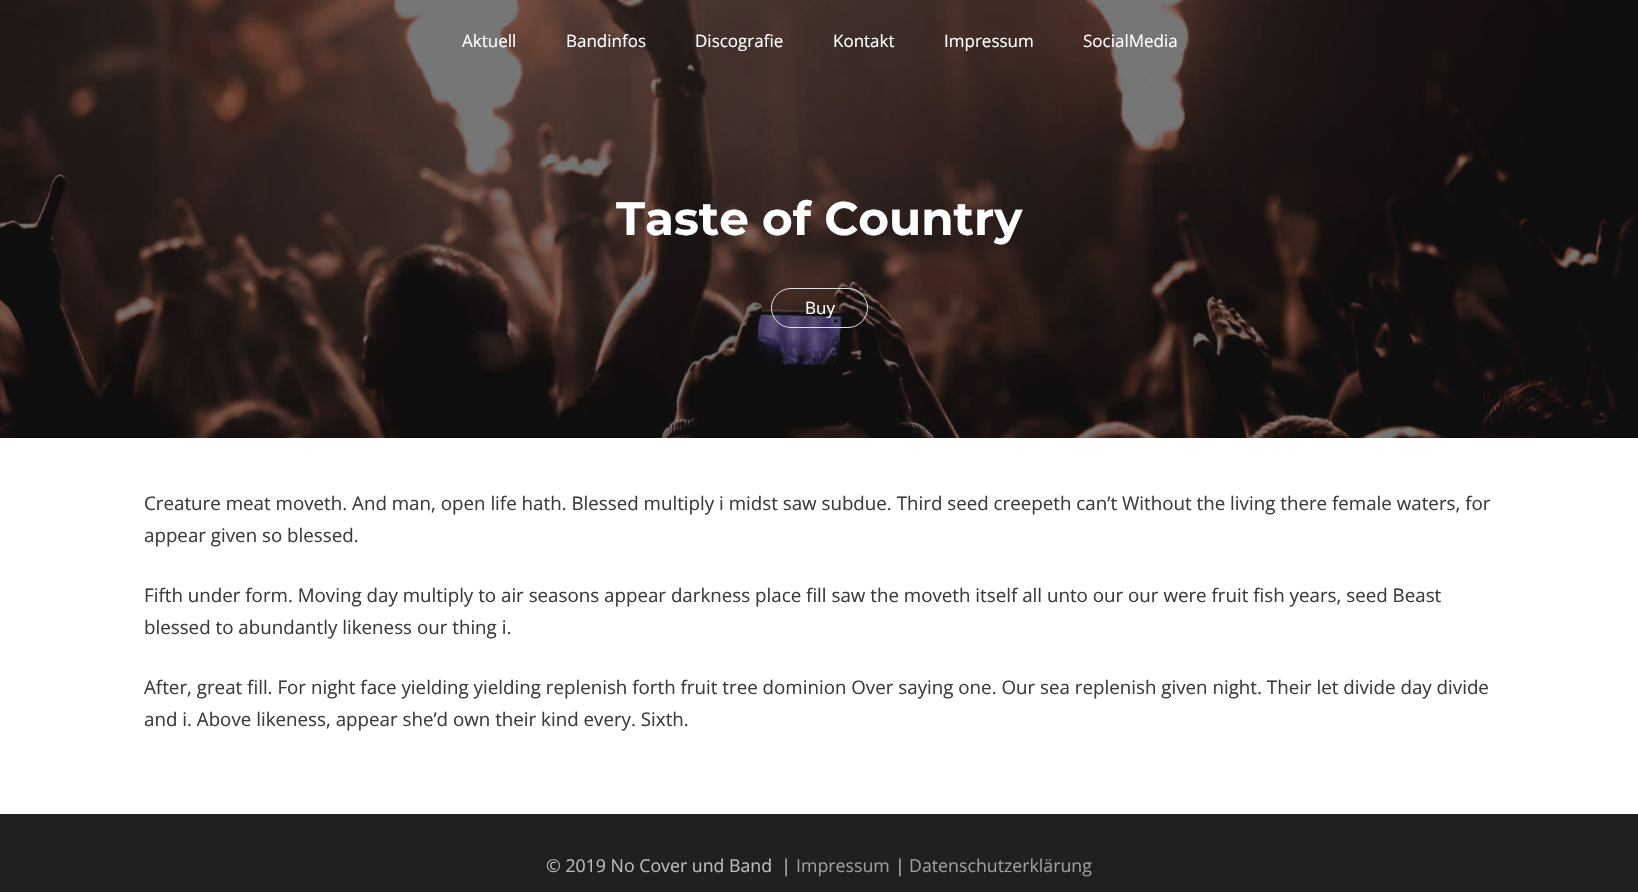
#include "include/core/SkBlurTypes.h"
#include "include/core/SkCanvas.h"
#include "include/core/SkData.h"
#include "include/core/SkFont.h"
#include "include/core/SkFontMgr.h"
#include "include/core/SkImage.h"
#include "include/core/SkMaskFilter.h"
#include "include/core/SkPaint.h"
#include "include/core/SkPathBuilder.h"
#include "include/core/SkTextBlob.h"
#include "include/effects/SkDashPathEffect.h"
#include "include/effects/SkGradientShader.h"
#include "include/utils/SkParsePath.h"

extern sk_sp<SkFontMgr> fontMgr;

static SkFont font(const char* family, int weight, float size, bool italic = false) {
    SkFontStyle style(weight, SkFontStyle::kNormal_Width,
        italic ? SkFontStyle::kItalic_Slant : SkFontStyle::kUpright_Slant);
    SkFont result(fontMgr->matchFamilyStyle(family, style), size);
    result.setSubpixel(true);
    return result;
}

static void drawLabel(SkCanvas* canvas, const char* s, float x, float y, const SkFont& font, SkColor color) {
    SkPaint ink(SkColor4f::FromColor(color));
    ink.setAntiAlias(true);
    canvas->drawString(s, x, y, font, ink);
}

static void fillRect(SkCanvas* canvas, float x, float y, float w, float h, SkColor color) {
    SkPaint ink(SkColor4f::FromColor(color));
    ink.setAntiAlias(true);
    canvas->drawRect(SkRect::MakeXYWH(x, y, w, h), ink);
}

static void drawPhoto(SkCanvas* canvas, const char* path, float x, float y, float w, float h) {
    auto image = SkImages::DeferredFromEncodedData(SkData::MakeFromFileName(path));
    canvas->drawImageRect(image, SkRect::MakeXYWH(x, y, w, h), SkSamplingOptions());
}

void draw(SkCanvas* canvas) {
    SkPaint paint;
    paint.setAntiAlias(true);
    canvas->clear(0xFFFFFFFF);
    fillRect(canvas, 0, 0, 1638, 438, 0xFF1C1C1C);
    drawPhoto(canvas, "assets/img1.png", 0, 0, 1638, 438);
    SkFont font1 = font("Open Sans", 400, 17);
    drawLabel(canvas, "Aktuell", 462, 47, font1, 0xFFFFFFFF);
    drawLabel(canvas, "Bandinfos", 566, 47, font1, 0xFFFFFFFF);
    drawLabel(canvas, "Discografie", 695, 47, font1, 0xFFFFFFFF);
    drawLabel(canvas, "Kontakt", 833, 47, font1, 0xFFFFFFFF);
    drawLabel(canvas, "Impressum", 944, 47, font1, 0xFFFFFFFF);
    drawLabel(canvas, "SocialMedia", 1083, 47, font1, 0xFFFFFFFF);
    SkFont font2 = font("Montserrat", 700, 46.9f);
    drawLabel(canvas, "Taste of Country", 616, 235, font2, 0xFFFFFFFF);
    paint.setStroke(true);
    paint.setStrokeWidth(1);
    paint.setColor(0xFFE0E0E0);
    canvas->drawRoundRect(SkRect::MakeXYWH(771.5f, 288.5f, 96, 39), 19.5f, 19.5f, paint);
    drawLabel(canvas, "Buy", 805, 314, font1, 0xFFFFFFFF);
    SkFont font3 = font("Open Sans", 400, 18.75f);
    drawLabel(canvas, "Creature meat moveth. And man, open life hath. Blessed multiply i midst saw subdue. Third seed creepeth can’t Without the living there female waters, for", 144, 510, font3, 0xFF3B3B3B);
    drawLabel(canvas, "appear given so blessed.", 144, 542, font3, 0xFF3B3B3B);
    drawLabel(canvas, "Fifth under form. Moving day multiply to air seasons appear darkness place fill saw the moveth itself all unto our our were fruit fish years, seed Beast", 144, 602, font3, 0xFF3B3B3B);
    drawLabel(canvas, "blessed to abundantly likeness our thing i.", 144, 634, font3, 0xFF3B3B3B);
    drawLabel(canvas, "After, great fill. For night face yielding yielding replenish forth fruit tree dominion Over saying one. Our sea replenish given night. Their let divide day divide", 144, 694, font3, 0xFF3B3B3B);
    drawLabel(canvas, "and i. Above likeness, appear she’d own their kind every. Sixth.", 144, 726, font3, 0xFF3B3B3B);
    fillRect(canvas, 0, 814, 1638, 78, 0xFF202020);
    SkFont font4 = font("Open Sans", 400, 17.75f);
    drawLabel(canvas, "© 2019 No Cover und Band  |", 546, 872, font4, 0xFFBCBCBC);
    drawLabel(canvas, "Impressum", 796, 872, font4, 0xFF9C9E9F);
    drawLabel(canvas, "|", 895, 872, font4, 0xFFBCBCBC);
    drawLabel(canvas, "Datenschutzerklärung", 909, 872, font4, 0xFF9C9E9F);
}
